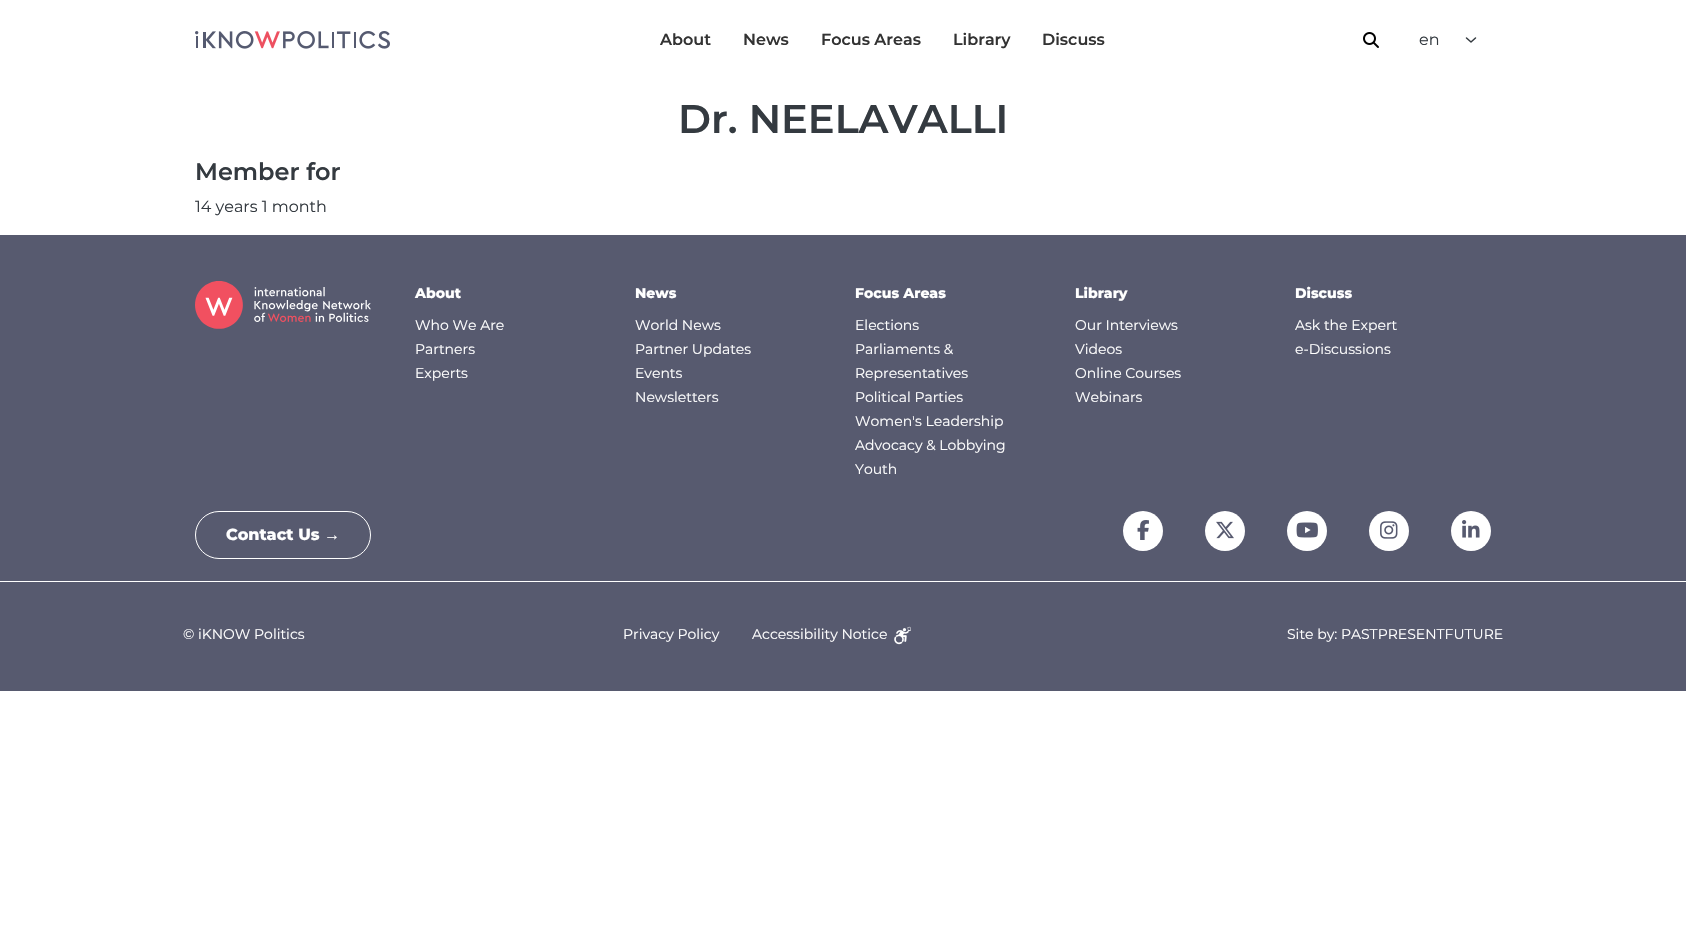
#include "include/core/SkBlurTypes.h"
#include "include/core/SkCanvas.h"
#include "include/core/SkData.h"
#include "include/core/SkFont.h"
#include "include/core/SkFontMgr.h"
#include "include/core/SkImage.h"
#include "include/core/SkMaskFilter.h"
#include "include/core/SkPaint.h"
#include "include/core/SkPathBuilder.h"
#include "include/core/SkTextBlob.h"
#include "include/effects/SkDashPathEffect.h"
#include "include/effects/SkGradientShader.h"
#include "include/utils/SkParsePath.h"

extern sk_sp<SkFontMgr> fontMgr;

static SkFont font(const char* family, int weight, float size, bool italic = false) {
    SkFontStyle style(weight, SkFontStyle::kNormal_Width,
        italic ? SkFontStyle::kItalic_Slant : SkFontStyle::kUpright_Slant);
    SkFont result(fontMgr->matchFamilyStyle(family, style), size);
    result.setSubpixel(true);
    return result;
}

static void drawLabel(SkCanvas* canvas, const char* s, float x, float y, const SkFont& font, SkColor color) {
    SkPaint ink(SkColor4f::FromColor(color));
    ink.setAntiAlias(true);
    canvas->drawString(s, x, y, font, ink);
}

static void fillRect(SkCanvas* canvas, float x, float y, float w, float h, SkColor color) {
    SkPaint ink(SkColor4f::FromColor(color));
    ink.setAntiAlias(true);
    canvas->drawRect(SkRect::MakeXYWH(x, y, w, h), ink);
}

static void drawPhoto(SkCanvas* canvas, const char* path, float x, float y, float w, float h) {
    auto image = SkImages::DeferredFromEncodedData(SkData::MakeFromFileName(path));
    canvas->drawImageRect(image, SkRect::MakeXYWH(x, y, w, h), SkSamplingOptions());
}

static SkPath parsePath(const char* data, bool evenOdd = false) {
    SkPath result = *SkParsePath::FromSVGString(data);
    if (evenOdd) result.setFillType(SkPathFillType::kEvenOdd);
    return result;
}

void draw(SkCanvas* canvas) {
    SkPaint paint;
    paint.setAntiAlias(true);
    canvas->clear(0xFFFFFFFF);
    drawPhoto(canvas, "assets/img1.png", 195, 31, 195, 18);
    SkFont font1 = font("Montserrat", 600, 16);
    drawLabel(canvas, "About", 660, 45, font1, 0xFF333333);
    drawLabel(canvas, "News", 743, 45, font1, 0xFF333333);
    drawLabel(canvas, "Focus Areas", 821, 45, font1, 0xFF333333);
    drawLabel(canvas, "Library", 953, 45, font1, 0xFF333333);
    drawLabel(canvas, "Discuss", 1042, 45, font1, 0xFF333333);
    drawPhoto(canvas, "assets/img2.png", 1363, 32, 16, 16);
    paint.setStroke(true);
    paint.setStrokeWidth(1.5f);
    paint.setStrokeCap(SkPaint::kRound_Cap);
    paint.setStrokeJoin(SkPaint::kRound_Join);
    paint.setColor(0xFF343A40);
    canvas->drawPath(parsePath("M1466.5 38L1471 42L1475.5 38"), paint);
    SkFont font2 = font("Montserrat", 400, 16);
    drawLabel(canvas, "en", 1419, 45, font2, 0xFF343A40);
    SkFont font3 = font("Montserrat", 600, 40);
    drawLabel(canvas, "Dr. NEELAVALLI", 678, 133, font3, 0xFF343A40);
    SkFont font4 = font("Montserrat", 600, 24);
    drawLabel(canvas, "Member for", 195, 180, font4, 0xFF343A40);
    drawLabel(canvas, "14 years 1 month", 195, 212, font2, 0xFF343A40);
    fillRect(canvas, 0, 235, 1686, 456, 0xFF575A6F);
    drawPhoto(canvas, "assets/img3.png", 195, 281, 176, 48);
    SkFont font5 = font("Montserrat", 800, 14);
    drawLabel(canvas, "About", 415, 298, font5, 0xFFFFFFFF);
    SkFont font6 = font("Montserrat", 400, 14);
    drawLabel(canvas, "Who We Are", 415, 330, font6, 0xFFFFFFFF);
    drawLabel(canvas, "Partners", 415, 354, font6, 0xFFFFFFFF);
    drawLabel(canvas, "Experts", 415, 378, font6, 0xFFFFFFFF);
    drawLabel(canvas, "News", 635, 298, font5, 0xFFFFFFFF);
    drawLabel(canvas, "World News", 635, 330, font6, 0xFFFFFFFF);
    drawLabel(canvas, "Partner Updates", 635, 354, font6, 0xFFFFFFFF);
    drawLabel(canvas, "Events", 635, 378, font6, 0xFFFFFFFF);
    drawLabel(canvas, "Newsletters", 635, 402, font6, 0xFFFFFFFF);
    drawLabel(canvas, "Focus Areas", 855, 298, font5, 0xFFFFFFFF);
    drawLabel(canvas, "Elections", 855, 330, font6, 0xFFFFFFFF);
    drawLabel(canvas, "Parliaments &", 855, 354, font6, 0xFFFFFFFF);
    drawLabel(canvas, "Representatives", 855, 378, font6, 0xFFFFFFFF);
    drawLabel(canvas, "Political Parties", 855, 402, font6, 0xFFFFFFFF);
    drawLabel(canvas, "Women's Leadership", 855, 426, font6, 0xFFFFFFFF);
    drawLabel(canvas, "Advocacy & Lobbying", 855, 450, font6, 0xFFFFFFFF);
    drawLabel(canvas, "Youth", 855, 474, font6, 0xFFFFFFFF);
    drawLabel(canvas, "Library", 1075, 298, font5, 0xFFFFFFFF);
    drawLabel(canvas, "Our Interviews", 1075, 330, font6, 0xFFFFFFFF);
    drawLabel(canvas, "Videos", 1075, 354, font6, 0xFFFFFFFF);
    drawLabel(canvas, "Online Courses", 1075, 378, font6, 0xFFFFFFFF);
    drawLabel(canvas, "Webinars", 1075, 402, font6, 0xFFFFFFFF);
    drawLabel(canvas, "Discuss", 1295, 298, font5, 0xFFFFFFFF);
    drawLabel(canvas, "Ask the Expert", 1295, 330, font6, 0xFFFFFFFF);
    drawLabel(canvas, "e-Discussions", 1295, 354, font6, 0xFFFFFFFF);
    paint.setStrokeWidth(1);
    paint.setStrokeCap(SkPaint::kButt_Cap);
    paint.setStrokeJoin(SkPaint::kMiter_Join);
    paint.setColor(0xFFFFFFFF);
    canvas->drawRoundRect(SkRect::MakeXYWH(195.5f, 511.5f, 175, 47), 23.5f, 23.5f, paint);
    SkFont font7 = font("Montserrat", 800, 16);
    drawLabel(canvas, "Contact Us", 226, 540, font7, 0xFFFFFFFF);
    SkFont font8 = font("Liberation Sans", 700, 16);
    drawLabel(canvas, "→", 324, 540, font8, 0xFFFFFFFF);
    paint.setStroke(false);
    canvas->drawCircle(1143, 531, 20, paint);
    drawPhoto(canvas, "assets/img4.png", 1137, 520, 12, 20);
    canvas->drawCircle(1225, 531, 20, paint);
    drawPhoto(canvas, "assets/img5.png", 1216, 521, 18, 18);
    canvas->drawCircle(1307, 531, 20, paint);
    drawPhoto(canvas, "assets/img6.png", 1296, 522, 22, 16);
    canvas->drawCircle(1389, 531, 20, paint);
    drawPhoto(canvas, "assets/img7.png", 1380, 521, 18, 18);
    canvas->drawCircle(1471, 531, 20, paint);
    drawPhoto(canvas, "assets/img8.png", 1462, 520, 18, 18);
    fillRect(canvas, 0, 581, 1686, 1, 0xFFFFFFFF);
    drawLabel(canvas, "© iKNOW Politics", 183, 639, font6, 0xFFFFFFFF);
    drawLabel(canvas, "Privacy Policy", 623, 639, font6, 0xFFFFFFFF);
    drawLabel(canvas, "Accessibility Notice", 752, 639, font6, 0xFFFFFFFF);
    drawPhoto(canvas, "assets/img9.png", 894, 626, 17, 19);
    drawLabel(canvas, "Site by: PASTPRESENTFUTURE", 1287, 639, font6, 0xFFFFFFFF);
}
